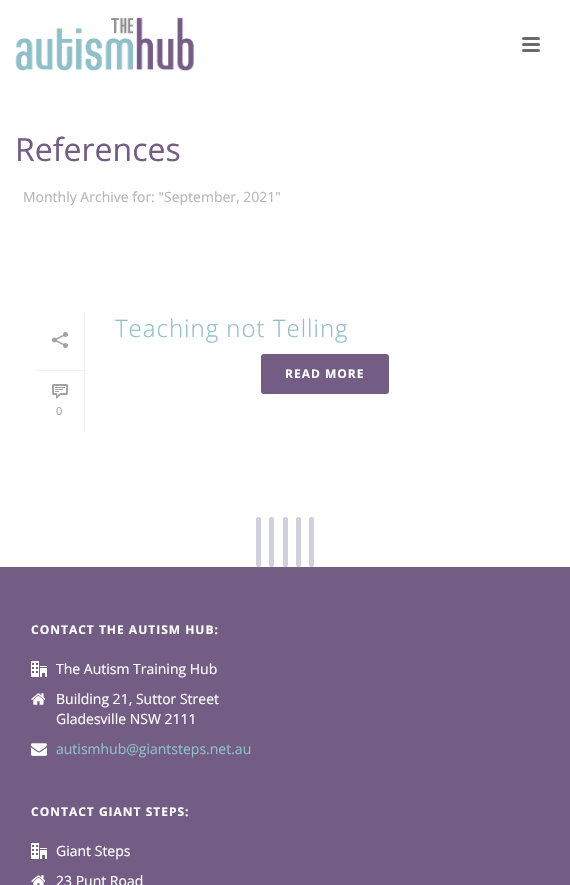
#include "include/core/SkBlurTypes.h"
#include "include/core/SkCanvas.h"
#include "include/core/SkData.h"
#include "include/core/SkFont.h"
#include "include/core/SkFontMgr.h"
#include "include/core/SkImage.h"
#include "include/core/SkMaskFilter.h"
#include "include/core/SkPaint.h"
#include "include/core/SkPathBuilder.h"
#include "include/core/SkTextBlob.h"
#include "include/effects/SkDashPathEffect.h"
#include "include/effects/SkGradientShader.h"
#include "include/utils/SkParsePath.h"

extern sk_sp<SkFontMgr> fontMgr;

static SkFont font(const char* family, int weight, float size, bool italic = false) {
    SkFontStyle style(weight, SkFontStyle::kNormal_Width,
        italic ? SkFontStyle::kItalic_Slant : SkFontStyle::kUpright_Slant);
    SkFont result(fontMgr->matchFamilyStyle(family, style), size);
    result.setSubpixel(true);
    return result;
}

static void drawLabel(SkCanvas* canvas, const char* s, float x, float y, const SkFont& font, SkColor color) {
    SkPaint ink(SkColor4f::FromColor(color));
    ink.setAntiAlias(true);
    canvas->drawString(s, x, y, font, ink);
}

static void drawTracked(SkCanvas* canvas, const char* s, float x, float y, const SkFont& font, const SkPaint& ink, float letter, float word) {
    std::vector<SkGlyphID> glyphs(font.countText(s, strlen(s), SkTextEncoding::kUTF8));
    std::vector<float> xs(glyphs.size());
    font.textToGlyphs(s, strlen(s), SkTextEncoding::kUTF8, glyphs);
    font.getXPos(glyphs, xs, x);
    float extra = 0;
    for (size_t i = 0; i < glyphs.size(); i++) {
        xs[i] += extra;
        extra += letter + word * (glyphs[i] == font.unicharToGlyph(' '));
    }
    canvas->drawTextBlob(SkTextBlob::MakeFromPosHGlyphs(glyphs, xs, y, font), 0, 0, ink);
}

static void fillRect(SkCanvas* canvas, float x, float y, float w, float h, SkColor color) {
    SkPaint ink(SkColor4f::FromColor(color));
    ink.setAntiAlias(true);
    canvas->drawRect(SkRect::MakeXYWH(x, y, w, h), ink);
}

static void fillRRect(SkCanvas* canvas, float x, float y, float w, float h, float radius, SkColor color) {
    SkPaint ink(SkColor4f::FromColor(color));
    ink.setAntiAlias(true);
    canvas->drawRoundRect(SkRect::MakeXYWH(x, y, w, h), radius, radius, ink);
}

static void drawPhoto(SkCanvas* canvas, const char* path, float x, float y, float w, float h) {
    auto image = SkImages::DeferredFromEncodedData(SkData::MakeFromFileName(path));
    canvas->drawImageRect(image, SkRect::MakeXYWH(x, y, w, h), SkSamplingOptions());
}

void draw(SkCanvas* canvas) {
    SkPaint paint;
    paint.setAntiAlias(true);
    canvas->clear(0xFFFFFFFF);
    drawPhoto(canvas, "assets/img1.png", 15, 17, 179, 54);
    fillRRect(canvas, 522, 37, 18, 3, 1.5f, 0xFF6B6B6B);
    fillRRect(canvas, 522, 43, 18, 3, 1.5f, 0xFF6B6B6B);
    fillRRect(canvas, 522, 49, 18, 3, 1.5f, 0xFF6B6B6B);
    SkFont font1 = font("Open Sans", 400, 32);
    drawLabel(canvas, "References", 15, 161, font1, 0xFF745D84);
    SkFont font2 = font("Open Sans", 400, 14);
    drawLabel(canvas, "Monthly Archive for: \"September, 2021\"", 23, 202, font2, 0xFFB6B6B6);
    SkFont font3 = font("Open Sans", 300, 24);
    paint.setColor(0xFF8FC0C8);
    drawTracked(canvas, "Teaching not Telling", 115, 337, font3, paint, 1, 0);
    fillRRect(canvas, 261, 354, 128, 40, 3, 0xFF745D84);
    SkFont font4 = font("Open Sans", 700, 12);
    paint.setColor(0xFFFFFFFF);
    drawTracked(canvas, "READ MORE", 285, 378, font4, paint, 1, 0);
    fillRect(canvas, 84, 312, 1, 120, 0xFFF2F2F2);
    fillRect(canvas, 35, 370, 49, 1, 0xFFF2F2F2);
    drawPhoto(canvas, "assets/img2.png", 52, 332, 16, 16);
    drawPhoto(canvas, "assets/img3.png", 52, 384, 16, 15);
    SkFont font5 = font("Open Sans", 400, 11);
    drawLabel(canvas, "0", 56, 415, font5, 0xFFA2A2A2);
    fillRect(canvas, 0, 567, 570, 318, 0xFF745D84);
    drawTracked(canvas, "CONTACT THE AUTISM HUB:", 31, 634, font4, paint, 1, 0);
    drawPhoto(canvas, "assets/img4.png", 31, 661, 16, 16);
    drawLabel(canvas, "The Autism Training Hub", 56, 674, font2, 0xFFFFFFFF);
    drawPhoto(canvas, "assets/img5.png", 31, 693, 14, 12);
    drawLabel(canvas, "Building 21, Suttor Street", 56, 704, font2, 0xFFFFFFFF);
    drawLabel(canvas, "Gladesville NSW 2111", 56, 724, font2, 0xFFFFFFFF);
    drawPhoto(canvas, "assets/img6.png", 31, 743, 16, 13);
    drawLabel(canvas, "autismhub@giantsteps.net.au", 56, 754, font2, 0xFF8FC0C8);
    drawTracked(canvas, "CONTACT GIANT STEPS:", 31, 816, font4, paint, 1, 0);
    drawPhoto(canvas, "assets/img4.png", 31, 843, 16, 16);
    drawLabel(canvas, "Giant Steps", 56, 856, font2, 0xFFFFFFFF);
    drawPhoto(canvas, "assets/img7.png", 31, 875, 14, 10);
    drawLabel(canvas, "23 Punt Road", 56, 886, font2, 0xFFFFFFFF);
    fillRRect(canvas, 256, 517, 5, 50, 2, 0xFFD0CFDD);
    fillRRect(canvas, 269, 517, 5, 50, 2, 0xFFD0CFDD);
    fillRRect(canvas, 283, 517, 5, 50, 2, 0xFFD0CFDD);
    fillRRect(canvas, 296, 517, 5, 50, 2, 0xFFD0CFDD);
    fillRRect(canvas, 309, 517, 5, 50, 2, 0xFFD0CFDD);
}
